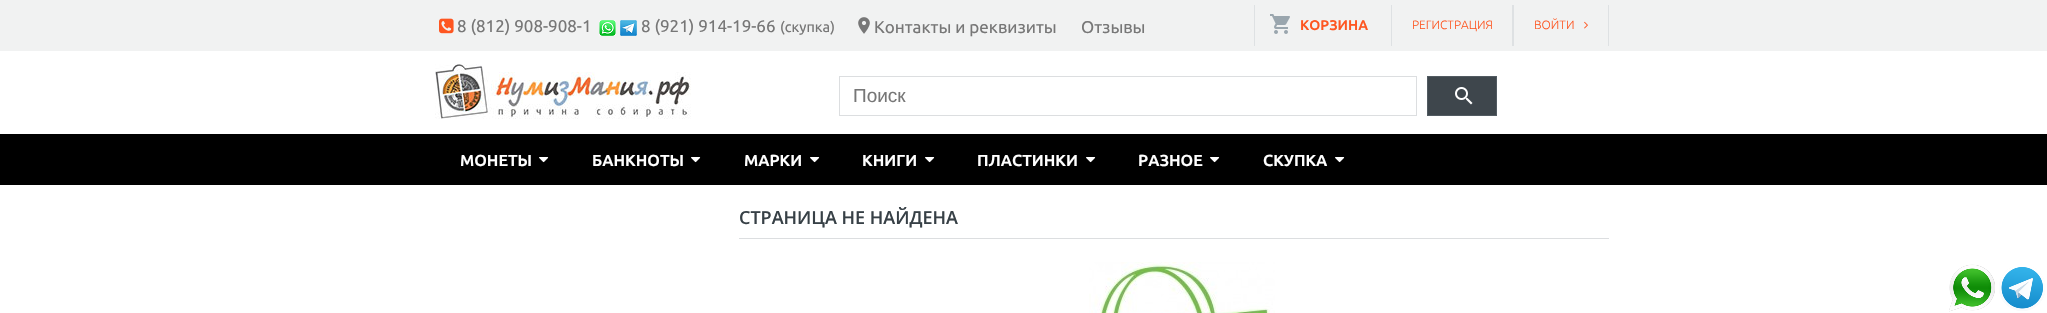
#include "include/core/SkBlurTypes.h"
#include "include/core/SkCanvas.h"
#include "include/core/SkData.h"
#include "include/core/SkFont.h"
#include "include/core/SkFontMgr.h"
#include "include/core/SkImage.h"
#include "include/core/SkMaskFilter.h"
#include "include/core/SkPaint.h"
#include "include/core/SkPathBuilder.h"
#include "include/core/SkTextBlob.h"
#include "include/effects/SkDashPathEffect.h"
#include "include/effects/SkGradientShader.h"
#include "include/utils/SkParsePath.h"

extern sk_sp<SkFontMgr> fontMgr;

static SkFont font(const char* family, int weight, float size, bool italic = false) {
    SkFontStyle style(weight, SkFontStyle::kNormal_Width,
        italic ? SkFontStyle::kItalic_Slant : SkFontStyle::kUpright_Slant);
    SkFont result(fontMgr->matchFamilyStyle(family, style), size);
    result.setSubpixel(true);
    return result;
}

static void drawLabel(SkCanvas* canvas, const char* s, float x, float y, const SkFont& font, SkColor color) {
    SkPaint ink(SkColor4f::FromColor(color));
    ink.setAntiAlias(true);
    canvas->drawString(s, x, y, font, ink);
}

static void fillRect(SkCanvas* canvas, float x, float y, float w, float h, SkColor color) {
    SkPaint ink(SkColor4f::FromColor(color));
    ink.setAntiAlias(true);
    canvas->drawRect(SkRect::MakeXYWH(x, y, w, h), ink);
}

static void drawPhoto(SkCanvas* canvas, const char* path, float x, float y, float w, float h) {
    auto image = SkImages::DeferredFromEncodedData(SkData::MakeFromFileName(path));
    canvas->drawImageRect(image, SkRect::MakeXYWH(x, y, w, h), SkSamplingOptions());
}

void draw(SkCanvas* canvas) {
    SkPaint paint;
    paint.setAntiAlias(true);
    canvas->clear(0xFFFFFFFF);
    fillRect(canvas, 0, 0, 2047, 51, 0xFFF1F2F2);
    drawPhoto(canvas, "assets/img1.png", 439, 18, 15, 16);
    SkFont font1 = font("Ubuntu", 400, 17);
    drawLabel(canvas, "8 (812) 908-908-1", 457, 32, font1, 0xFF777777);
    drawPhoto(canvas, "assets/img2.png", 599, 20, 17, 16);
    drawPhoto(canvas, "assets/img3.png", 620, 20, 17, 16);
    drawLabel(canvas, "8 (921) 914-19-66", 641, 32, font1, 0xFF777777);
    SkFont font2 = font("Ubuntu", 400, 14.5f);
    drawLabel(canvas, "(скупка)", 780, 32, font2, 0xFF777777);
    drawPhoto(canvas, "assets/img4.png", 858, 17, 12, 17);
    drawLabel(canvas, "Контакты и реквизиты", 874, 33, font1, 0xFF777777);
    drawLabel(canvas, "Отзывы", 1081, 33, font1, 0xFF777777);
    fillRect(canvas, 1254, 5, 1, 41, 0xFFDEE1E3);
    drawPhoto(canvas, "assets/img5.png", 1270, 14, 20, 20);
    SkFont font3 = font("Ubuntu", 700, 14);
    drawLabel(canvas, "КОРЗИНА", 1300, 30, font3, 0xFFFE5621);
    fillRect(canvas, 1391, 5, 1, 41, 0xFFDEE1E3);
    SkFont font4 = font("Ubuntu", 300, 12);
    drawLabel(canvas, "РЕГИСТРАЦИЯ", 1412, 29, font4, 0xFFFE5621);
    fillRect(canvas, 1608, 5, 1, 41, 0xFFDEE1E3);
    fillRect(canvas, 1512, 5, 2, 41, 0xFFDEE1E3);
    drawLabel(canvas, "ВОЙТИ", 1534, 29, font4, 0xFFFE5621);
    drawPhoto(canvas, "assets/img6.png", 1584, 21, 4, 8);
    drawPhoto(canvas, "assets/img7.png", 435, 64, 256, 55);
    fillRect(canvas, 839, 76, 577, 1, 0xFFDCDEE0);
    fillRect(canvas, 839, 115, 577, 1, 0xFFDCDEE0);
    fillRect(canvas, 839, 76, 1, 40, 0xFFDCDEE0);
    SkFont font5 = font("Liberation Sans", 400, 19);
    drawLabel(canvas, "Поиск", 853, 102, font5, 0xFF777777);
    fillRect(canvas, 1416, 76, 1, 40, 0xFFDCDEE0);
    paint.setColor(0xFF3E464C);
    canvas->drawRect(SkRect::MakeXYWH(1427.5f, 76.5f, 69, 39), paint);
    paint.setStroke(true);
    paint.setStrokeWidth(1);
    paint.setColor(0xFF525B62);
    canvas->drawRect(SkRect::MakeXYWH(1427.5f, 76.5f, 69, 39), paint);
    drawPhoto(canvas, "assets/img8.png", 1455, 87, 18, 18);
    fillRect(canvas, 0, 134, 2047, 51, 0xFF000000);
    SkFont font6 = font("Ubuntu", 700, 16);
    drawLabel(canvas, "МОНЕТЫ", 460, 166, font6, 0xFFFFFFFF);
    drawPhoto(canvas, "assets/img9.png", 539, 157, 10, 6);
    drawLabel(canvas, "БАНКНОТЫ", 592, 166, font6, 0xFFFFFFFF);
    drawPhoto(canvas, "assets/img9.png", 691, 157, 10, 6);
    drawLabel(canvas, "МАРКИ", 744, 166, font6, 0xFFFFFFFF);
    drawPhoto(canvas, "assets/img9.png", 810, 157, 10, 6);
    drawLabel(canvas, "КНИГИ", 862, 166, font6, 0xFFFFFFFF);
    drawPhoto(canvas, "assets/img9.png", 925, 157, 10, 6);
    drawLabel(canvas, "ПЛАСТИНКИ", 977, 166, font6, 0xFFFFFFFF);
    drawPhoto(canvas, "assets/img9.png", 1086, 157, 10, 6);
    drawLabel(canvas, "РАЗНОЕ", 1138, 166, font6, 0xFFFFFFFF);
    drawPhoto(canvas, "assets/img9.png", 1210, 157, 10, 6);
    drawLabel(canvas, "CКУПКА", 1263, 166, font6, 0xFFFFFFFF);
    drawPhoto(canvas, "assets/img9.png", 1335, 157, 10, 6);
    fillRect(canvas, 739, 238, 870, 1, 0xFFDCDEE0);
    SkFont font7 = font("Open Sans", 600, 18);
    drawLabel(canvas, "СТРАНИЦА НЕ НАЙДЕНА", 739, 224, font7, 0xFF374046);
    drawPhoto(canvas, "assets/img10.png", 1089, 262, 186, 51);
    drawPhoto(canvas, "assets/img11.png", 1949, 264, 46, 48);
    drawPhoto(canvas, "assets/img12.png", 1999, 267, 46, 44);
}
